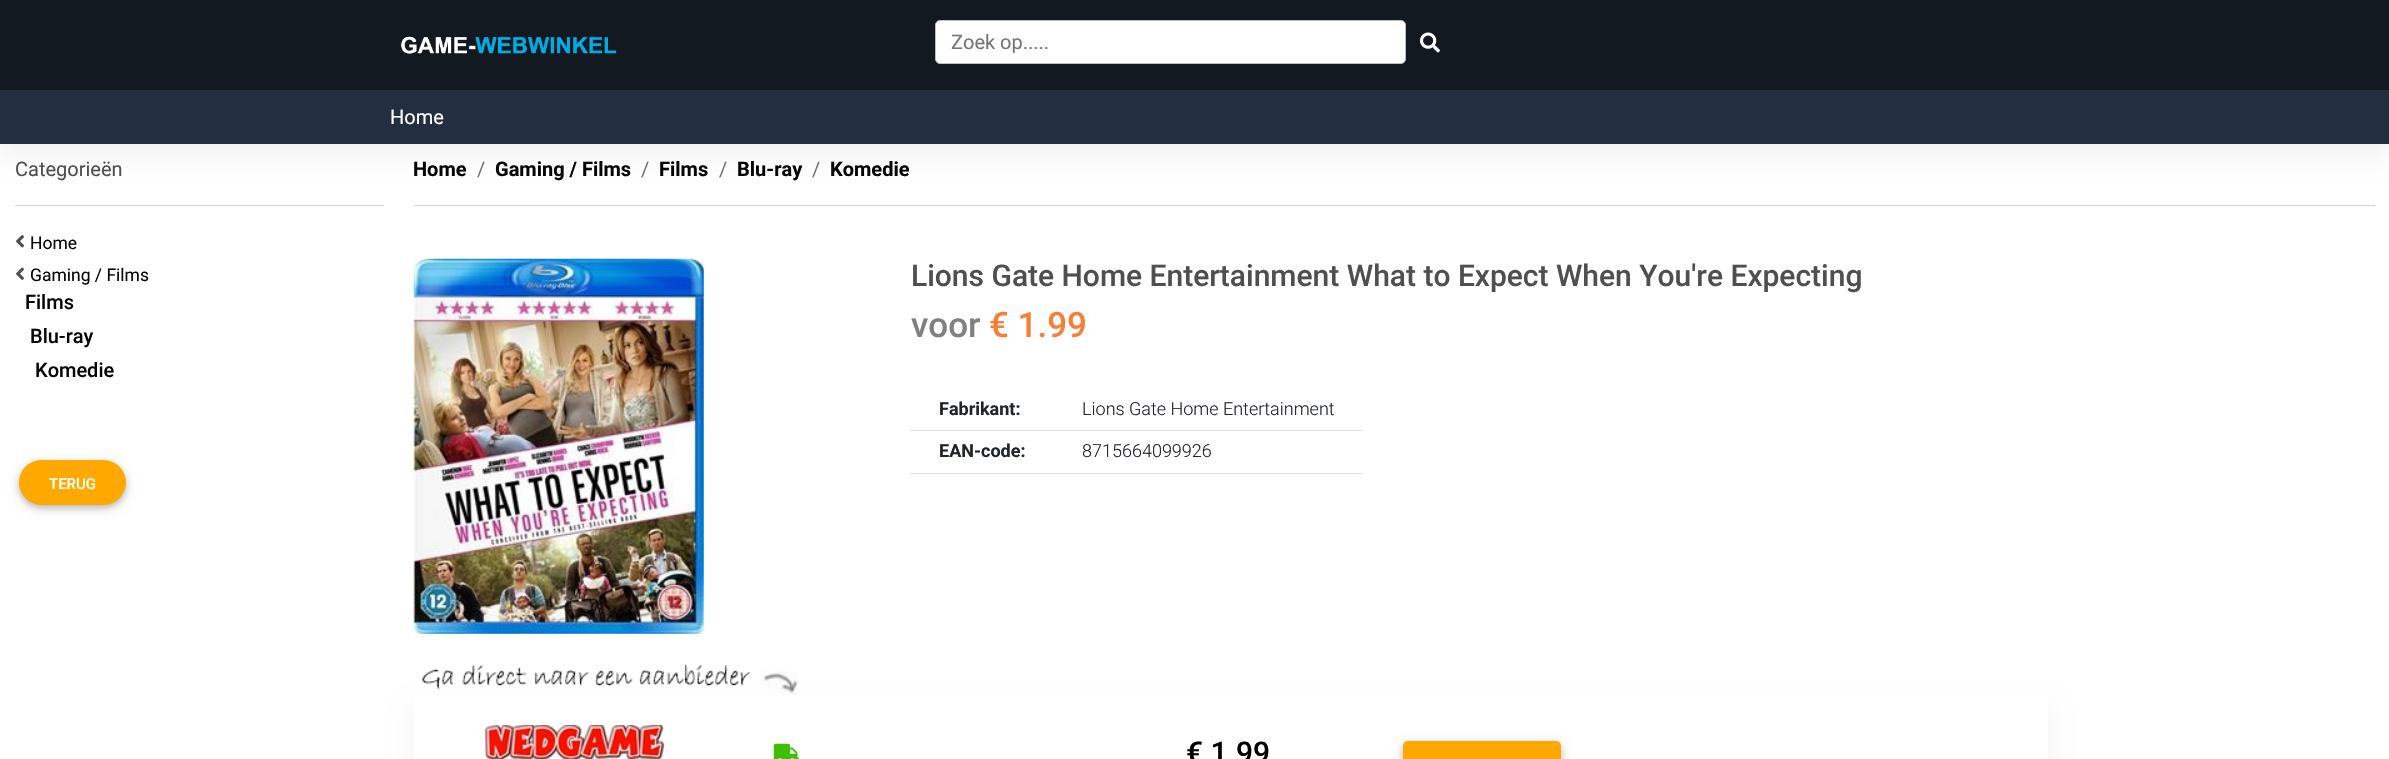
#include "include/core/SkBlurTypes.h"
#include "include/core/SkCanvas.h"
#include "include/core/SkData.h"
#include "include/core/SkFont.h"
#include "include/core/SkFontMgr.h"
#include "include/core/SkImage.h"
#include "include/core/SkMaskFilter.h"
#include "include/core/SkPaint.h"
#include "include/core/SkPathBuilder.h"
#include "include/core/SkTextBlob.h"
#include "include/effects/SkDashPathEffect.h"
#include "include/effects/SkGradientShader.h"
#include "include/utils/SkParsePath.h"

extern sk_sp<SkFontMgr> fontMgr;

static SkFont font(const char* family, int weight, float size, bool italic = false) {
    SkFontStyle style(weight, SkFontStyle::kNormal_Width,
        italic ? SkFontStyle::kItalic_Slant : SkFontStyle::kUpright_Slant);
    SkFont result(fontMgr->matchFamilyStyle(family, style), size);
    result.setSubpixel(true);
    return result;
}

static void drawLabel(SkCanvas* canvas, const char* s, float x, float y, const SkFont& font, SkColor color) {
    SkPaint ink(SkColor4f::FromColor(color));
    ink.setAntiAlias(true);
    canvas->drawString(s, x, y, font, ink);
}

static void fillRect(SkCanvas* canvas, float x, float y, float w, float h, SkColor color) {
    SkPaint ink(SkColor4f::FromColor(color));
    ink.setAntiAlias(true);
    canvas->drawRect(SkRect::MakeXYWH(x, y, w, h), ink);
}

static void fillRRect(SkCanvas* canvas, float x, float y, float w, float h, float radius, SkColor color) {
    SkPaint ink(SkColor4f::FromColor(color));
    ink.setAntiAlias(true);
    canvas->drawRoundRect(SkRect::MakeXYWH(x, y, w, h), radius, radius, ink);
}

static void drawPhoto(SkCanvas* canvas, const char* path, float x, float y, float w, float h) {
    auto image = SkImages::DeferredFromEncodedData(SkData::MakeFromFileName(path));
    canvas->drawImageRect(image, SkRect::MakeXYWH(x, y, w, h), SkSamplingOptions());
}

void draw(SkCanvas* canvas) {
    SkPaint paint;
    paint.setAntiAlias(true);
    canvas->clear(0xFFFFFFFF);
    fillRect(canvas, 0, 0, 2389, 90, 0xFF131921);
    drawPhoto(canvas, "assets/img1.png", 401, 36, 216, 18);
    paint.setColor(0xFFFFFFFF);
    canvas->drawRoundRect(SkRect::MakeXYWH(935.5f, 20.5f, 470, 43), 4.5f, 4.5f, paint);
    paint.setStroke(true);
    paint.setStrokeWidth(1);
    paint.setColor(0xFFBDBDBD);
    canvas->drawRoundRect(SkRect::MakeXYWH(935.5f, 20.5f, 470, 43), 4.5f, 4.5f, paint);
    SkFont font1 = font("Roboto", 400, 20);
    drawLabel(canvas, "Zoek op.....", 951, 49, font1, 0xFF757575);
    drawPhoto(canvas, "assets/img2.png", 1420, 32, 20, 21);
    paint.setStroke(false);
    paint.setColor(0x0D000000);
    paint.setMaskFilter(SkMaskFilter::MakeBlur(kNormal_SkBlurStyle, 12.5f));
    canvas->drawRect(SkRect::MakeXYWH(0, 103, 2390, 53), paint);
    paint.setMaskFilter(nullptr);
    fillRect(canvas, 0, 90, 2389, 54, 0xFF232F3E);
    drawLabel(canvas, "Home", 390, 124, font1, 0xFFFFFFFF);
    drawLabel(canvas, "Categorieën", 15, 176, font1, 0xFF4F4F4F);
    fillRect(canvas, 15, 205, 369, 1, 0xFFD3D3D3);
    drawPhoto(canvas, "assets/img3.png", 16, 235, 8, 13);
    SkFont font2 = font("Roboto", 400, 17.5f);
    drawLabel(canvas, "Home", 30, 249, font2, 0xFF060606);
    drawPhoto(canvas, "assets/img4.png", 16, 267, 8, 13);
    drawLabel(canvas, "Gaming / Films", 30, 281, font2, 0xFF060606);
    SkFont font3 = font("Roboto", 500, 20);
    drawLabel(canvas, "Films", 25, 309, font3, 0xFF060606);
    drawLabel(canvas, "Blu-ray", 30, 343, font3, 0xFF060606);
    drawLabel(canvas, "Komedie", 35, 377, font3, 0xFF060606);
    paint.setColor(0x1A000000);
    paint.setMaskFilter(SkMaskFilter::MakeBlur(kNormal_SkBlurStyle, 6));
    canvas->drawRoundRect(SkRect::MakeXYWH(19, 463, 107, 45), 22.5f, 22.5f, paint);
    paint.setMaskFilter(nullptr);
    paint.setColor(0x33000000);
    paint.setMaskFilter(SkMaskFilter::MakeBlur(kNormal_SkBlurStyle, 3));
    canvas->drawRoundRect(SkRect::MakeXYWH(19, 463, 107, 45), 22.5f, 22.5f, paint);
    paint.setMaskFilter(nullptr);
    fillRRect(canvas, 19, 460, 107, 45, 22.5f, 0xFFFFA900);
    SkFont font4 = font("Roboto", 500, 15);
    drawLabel(canvas, "TERUG", 49, 489, font4, 0xFFFFFFFF);
    SkFont font5 = font("Roboto", 700, 20);
    drawLabel(canvas, "Home", 413, 176, font5, 0xFF060606);
    drawLabel(canvas, "/", 477, 176, font1, 0xFF757575);
    drawLabel(canvas, "Gaming / Films", 495, 176, font5, 0xFF060606);
    drawLabel(canvas, "/", 641, 176, font1, 0xFF757575);
    drawLabel(canvas, "Films", 659, 176, font5, 0xFF060606);
    drawLabel(canvas, "/", 719, 176, font1, 0xFF757575);
    drawLabel(canvas, "Blu-ray", 737, 176, font5, 0xFF060606);
    drawLabel(canvas, "/", 812, 176, font1, 0xFF757575);
    drawLabel(canvas, "Komedie", 830, 176, font5, 0xFF060606);
    fillRect(canvas, 414, 205, 1961, 1, 0xFFD3D3D3);
    drawPhoto(canvas, "assets/img5.png", 413, 258, 291, 376);
    SkFont font6 = font("Roboto", 500, 30);
    drawLabel(canvas, "Lions Gate Home Entertainment What to Expect When You're Expecting", 911, 286, font6, 0xFF4F4F4F);
    SkFont font7 = font("Roboto", 500, 35);
    drawLabel(canvas, "€ 1.99", 989, 337, font7, 0xFFF77E36);
    SkFont font8 = font("Roboto", 700, 18);
    drawLabel(canvas, "Fabrikant:", 939, 415, font8, 0xFF212529);
    fillRect(canvas, 910, 430, 453, 1, 0xFFE0E0E0);
    SkFont font9 = font("Roboto", 300, 18);
    drawLabel(canvas, "Lions Gate Home Entertainment", 1082, 415, font9, 0xFF212529);
    drawLabel(canvas, "EAN-code:", 939, 457, font8, 0xFF212529);
    fillRect(canvas, 910, 473, 453, 1, 0xFFE0E0E0);
    drawLabel(canvas, "8715664099926", 1082, 457, font9, 0xFF212529);
    drawLabel(canvas, "voor", 911, 337, font7, 0xFF808080);
    drawPhoto(canvas, "assets/img6.png", 422, 665, 376, 30);
    paint.setColor(0x0D000000);
    paint.setMaskFilter(SkMaskFilter::MakeBlur(kNormal_SkBlurStyle, 12.5f));
    canvas->drawRoundRect(SkRect::MakeXYWH(414, 708, 1634, 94), 5, 5, paint);
    paint.setMaskFilter(nullptr);
    fillRRect(canvas, 414, 695, 1634, 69, 5, 0xFFFFFFFF);
    drawPhoto(canvas, "assets/img7.png", 484, 725, 181, 34);
    drawPhoto(canvas, "assets/img8.png", 773, 743, 26, 16);
    drawLabel(canvas, "€ 1.99", 1186, 763, font6, 0xFF000000);
    paint.setColor(0x1A000000);
    paint.setMaskFilter(SkMaskFilter::MakeBlur(kNormal_SkBlurStyle, 6));
    canvas->drawRoundRect(SkRect::MakeXYWH(1403, 744, 158, 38), 5, 5, paint);
    paint.setMaskFilter(nullptr);
    paint.setColor(0x33000000);
    paint.setMaskFilter(SkMaskFilter::MakeBlur(kNormal_SkBlurStyle, 3));
    canvas->drawRoundRect(SkRect::MakeXYWH(1403, 744, 158, 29), 5, 5, paint);
    paint.setMaskFilter(nullptr);
    fillRRect(canvas, 1403, 741, 158, 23, 5, 0xFFFFA900);
}
